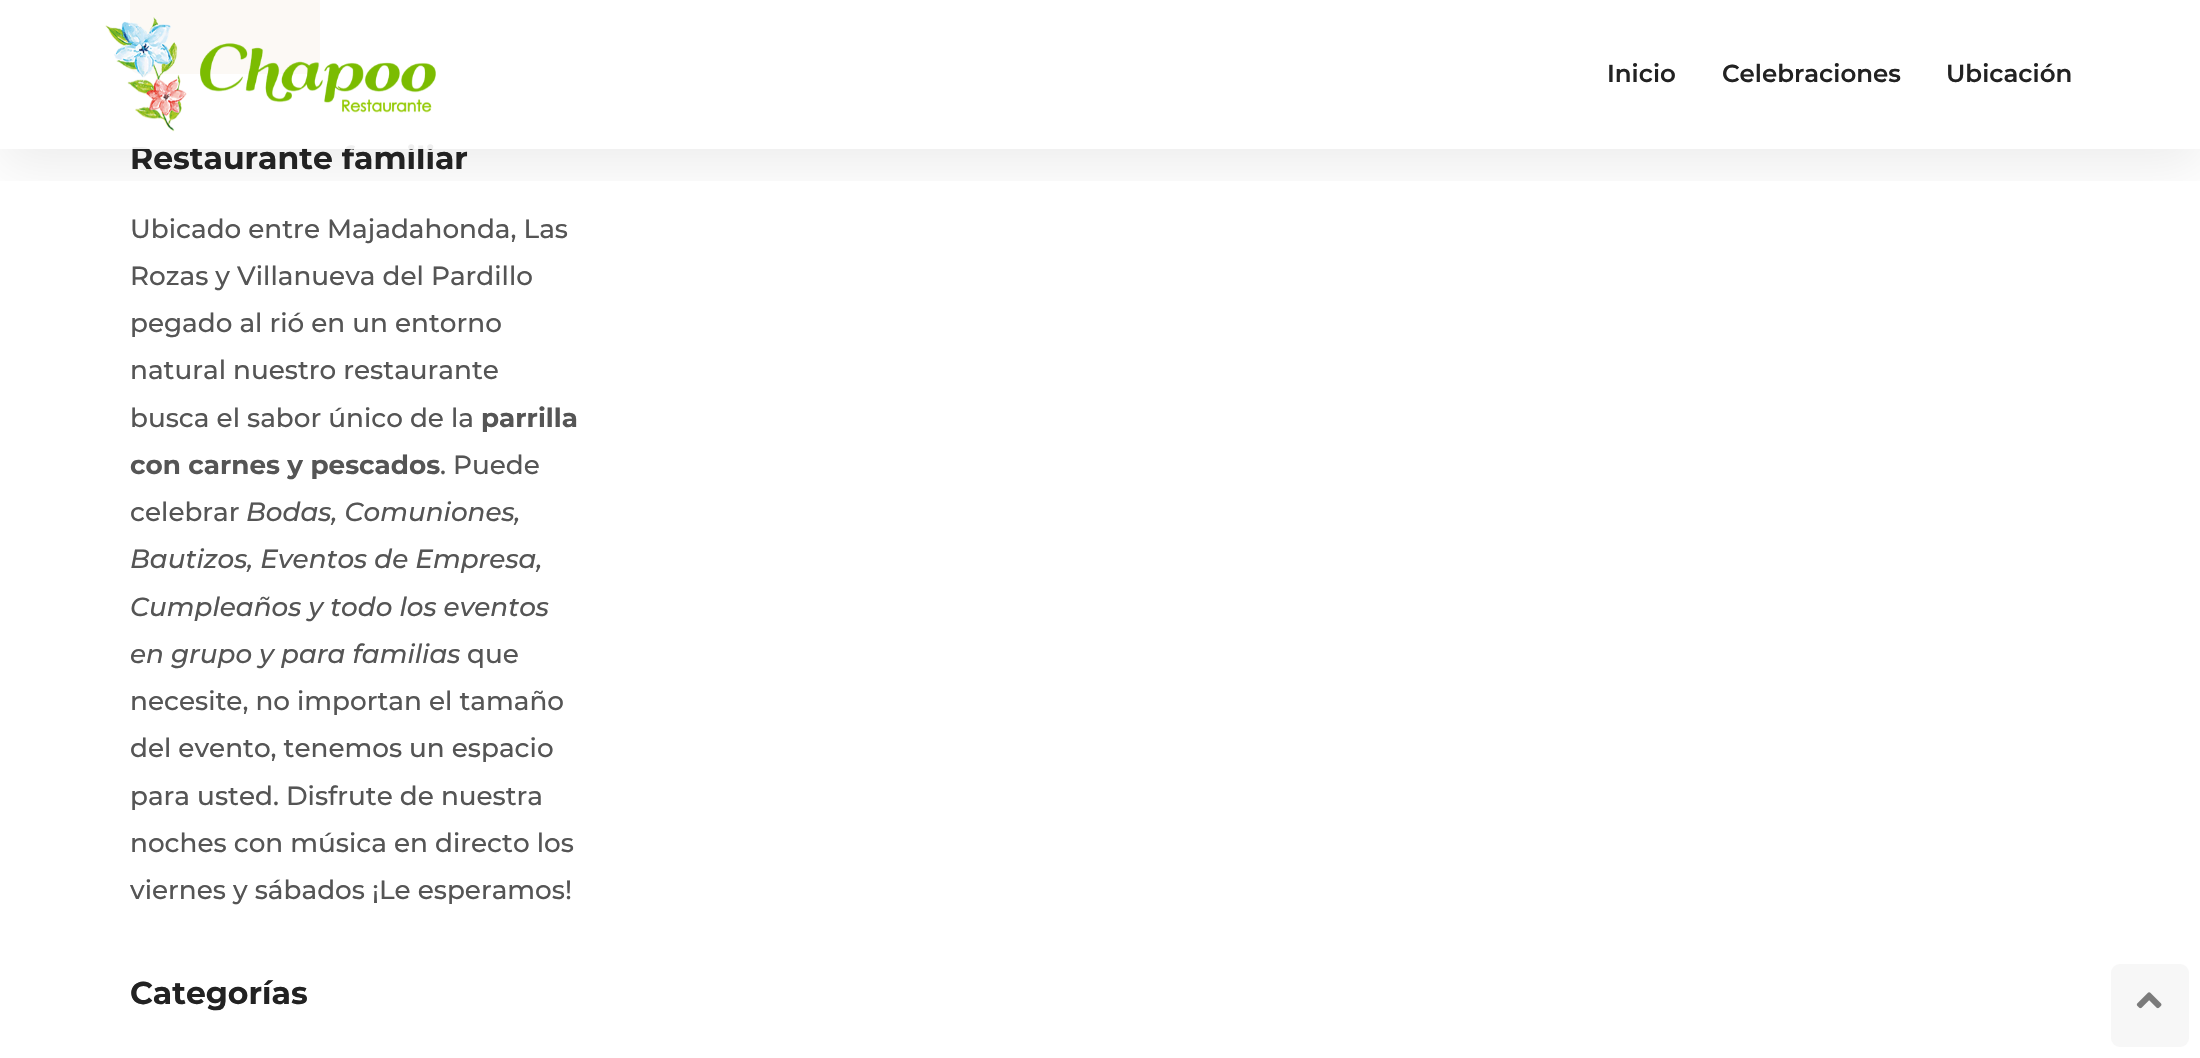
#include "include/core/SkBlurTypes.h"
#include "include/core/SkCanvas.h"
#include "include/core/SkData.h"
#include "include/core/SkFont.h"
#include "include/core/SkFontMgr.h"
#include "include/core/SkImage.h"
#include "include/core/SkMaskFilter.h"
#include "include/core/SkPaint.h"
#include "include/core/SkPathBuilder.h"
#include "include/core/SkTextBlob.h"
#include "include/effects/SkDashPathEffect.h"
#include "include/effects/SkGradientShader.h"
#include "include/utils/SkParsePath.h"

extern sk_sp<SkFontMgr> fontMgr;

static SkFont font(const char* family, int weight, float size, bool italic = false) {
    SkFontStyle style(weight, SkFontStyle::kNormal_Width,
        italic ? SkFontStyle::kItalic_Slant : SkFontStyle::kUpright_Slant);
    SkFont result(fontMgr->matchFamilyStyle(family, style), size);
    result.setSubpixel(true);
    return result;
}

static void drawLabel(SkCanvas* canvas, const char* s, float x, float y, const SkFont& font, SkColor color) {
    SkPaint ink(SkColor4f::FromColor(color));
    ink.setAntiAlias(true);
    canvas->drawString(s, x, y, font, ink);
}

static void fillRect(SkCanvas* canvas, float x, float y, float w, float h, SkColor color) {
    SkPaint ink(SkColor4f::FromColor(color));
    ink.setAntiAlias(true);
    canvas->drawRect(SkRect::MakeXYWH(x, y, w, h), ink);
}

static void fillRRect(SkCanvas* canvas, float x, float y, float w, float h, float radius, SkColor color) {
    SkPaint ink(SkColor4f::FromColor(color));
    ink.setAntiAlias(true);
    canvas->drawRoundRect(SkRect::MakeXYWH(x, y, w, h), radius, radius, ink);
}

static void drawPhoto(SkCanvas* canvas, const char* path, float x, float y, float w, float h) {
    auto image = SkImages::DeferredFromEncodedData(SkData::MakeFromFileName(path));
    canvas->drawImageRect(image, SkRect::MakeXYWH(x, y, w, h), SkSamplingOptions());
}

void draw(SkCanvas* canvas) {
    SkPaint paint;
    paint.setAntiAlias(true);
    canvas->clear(0xFFFFFFFF);
    paint.setColor(0xFFCFA670);
    canvas->drawRoundRect(SkRect::MakeXYWH(132, -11, 186, 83), 7, 7, paint);
    paint.setStroke(true);
    paint.setStrokeWidth(4);
    canvas->drawRoundRect(SkRect::MakeXYWH(132, -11, 186, 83), 7, 7, paint);
    canvas->save();
    canvas->clipRect(SkRect::MakeXYWH(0, 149, 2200, 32));
    paint.setStroke(false);
    paint.setColor(0x12000000);
    paint.setMaskFilter(SkMaskFilter::MakeBlur(kNormal_SkBlurStyle, 26));
    canvas->drawRect(SkRect::MakeXYWH(0, 18, 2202, 148), paint);
    paint.setMaskFilter(nullptr);
    canvas->restore();
    SkFont font1 = font("Montserrat", 700, 31.5f);
    drawLabel(canvas, "Restaurante familiar", 130, 169, font1, 0xFF222222);
    fillRect(canvas, 25, 0, 2152, 149, 0xEDFFFFFF);
    drawPhoto(canvas, "assets/img1.png", 105, 17, 331, 115);
    SkFont font2 = font("Montserrat", 600, 24.5f);
    drawLabel(canvas, "Inicio", 1607, 82, font2, 0xFF222222);
    drawLabel(canvas, "Celebraciones", 1722, 82, font2, 0xFF222222);
    drawLabel(canvas, "Ubicación", 1946, 82, font2, 0xFF222222);
    SkFont font3 = font("Montserrat", 500, 26.25f);
    drawLabel(canvas, "Ubicado entre Majadahonda, Las", 130, 238, font3, 0xFF555555);
    drawLabel(canvas, "Rozas y Villanueva del Pardillo", 130, 285, font3, 0xFF555555);
    drawLabel(canvas, "pegado al rió en un entorno", 130, 332, font3, 0xFF555555);
    drawLabel(canvas, "natural nuestro restaurante", 130, 379, font3, 0xFF555555);
    drawLabel(canvas, "busca el sabor único de la", 130, 427, font3, 0xFF555555);
    SkFont font4 = font("Montserrat", 700, 26.25f);
    drawLabel(canvas, "parrilla", 481, 427, font4, 0xFF555555);
    drawLabel(canvas, "con carnes y pescados", 130, 474, font4, 0xFF555555);
    drawLabel(canvas, ". Puede", 440, 474, font3, 0xFF555555);
    drawLabel(canvas, "celebrar", 130, 521, font3, 0xFF555555);
    SkFont font5 = font("Montserrat", 500, 26.25f, true);
    drawLabel(canvas, "Bodas, Comuniones,", 246, 521, font5, 0xFF555555);
    drawLabel(canvas, "Bautizos, Eventos de Empresa,", 130, 568, font5, 0xFF555555);
    drawLabel(canvas, "Cumpleaños y todo los eventos", 130, 616, font5, 0xFF555555);
    drawLabel(canvas, "en grupo y para familias", 130, 663, font5, 0xFF555555);
    drawLabel(canvas, "que", 467, 663, font3, 0xFF555555);
    drawLabel(canvas, "necesite, no importan el tamaño", 130, 710, font3, 0xFF555555);
    drawLabel(canvas, "del evento, tenemos un espacio", 130, 757, font3, 0xFF555555);
    drawLabel(canvas, "para usted. Disfrute de nuestra", 130, 805, font3, 0xFF555555);
    drawLabel(canvas, "noches con música en directo los", 130, 852, font3, 0xFF555555);
    drawLabel(canvas, "viernes y sábados ¡Le esperamos!", 130, 899, font3, 0xFF555555);
    drawLabel(canvas, "Categorías", 130, 1004, font1, 0xFF222222);
    fillRRect(canvas, 2111, 964, 78, 83, 9, 0xFFF7F7F7);
    drawPhoto(canvas, "assets/img2.png", 2136, 992, 26, 17);
}
